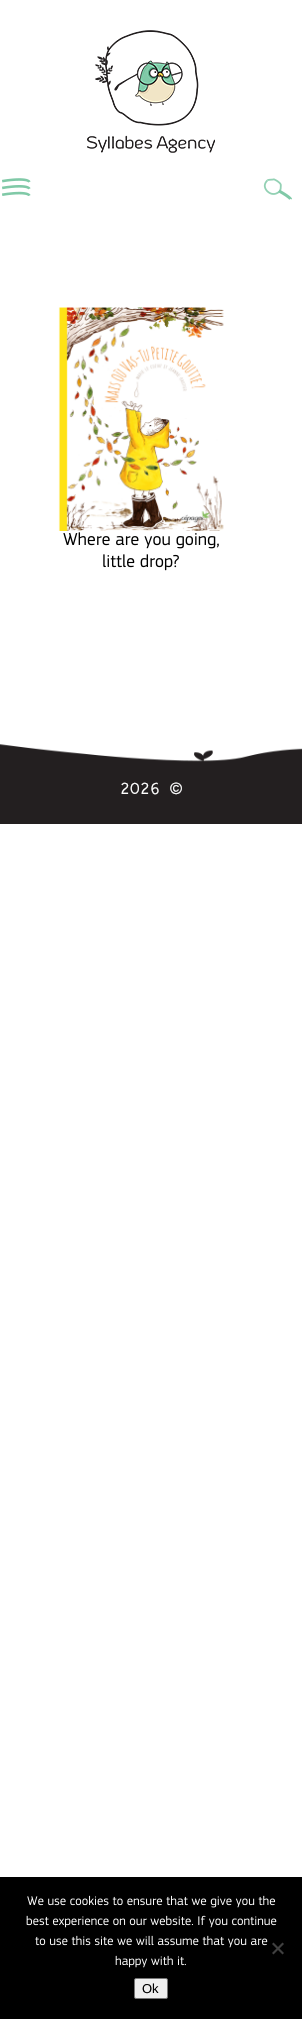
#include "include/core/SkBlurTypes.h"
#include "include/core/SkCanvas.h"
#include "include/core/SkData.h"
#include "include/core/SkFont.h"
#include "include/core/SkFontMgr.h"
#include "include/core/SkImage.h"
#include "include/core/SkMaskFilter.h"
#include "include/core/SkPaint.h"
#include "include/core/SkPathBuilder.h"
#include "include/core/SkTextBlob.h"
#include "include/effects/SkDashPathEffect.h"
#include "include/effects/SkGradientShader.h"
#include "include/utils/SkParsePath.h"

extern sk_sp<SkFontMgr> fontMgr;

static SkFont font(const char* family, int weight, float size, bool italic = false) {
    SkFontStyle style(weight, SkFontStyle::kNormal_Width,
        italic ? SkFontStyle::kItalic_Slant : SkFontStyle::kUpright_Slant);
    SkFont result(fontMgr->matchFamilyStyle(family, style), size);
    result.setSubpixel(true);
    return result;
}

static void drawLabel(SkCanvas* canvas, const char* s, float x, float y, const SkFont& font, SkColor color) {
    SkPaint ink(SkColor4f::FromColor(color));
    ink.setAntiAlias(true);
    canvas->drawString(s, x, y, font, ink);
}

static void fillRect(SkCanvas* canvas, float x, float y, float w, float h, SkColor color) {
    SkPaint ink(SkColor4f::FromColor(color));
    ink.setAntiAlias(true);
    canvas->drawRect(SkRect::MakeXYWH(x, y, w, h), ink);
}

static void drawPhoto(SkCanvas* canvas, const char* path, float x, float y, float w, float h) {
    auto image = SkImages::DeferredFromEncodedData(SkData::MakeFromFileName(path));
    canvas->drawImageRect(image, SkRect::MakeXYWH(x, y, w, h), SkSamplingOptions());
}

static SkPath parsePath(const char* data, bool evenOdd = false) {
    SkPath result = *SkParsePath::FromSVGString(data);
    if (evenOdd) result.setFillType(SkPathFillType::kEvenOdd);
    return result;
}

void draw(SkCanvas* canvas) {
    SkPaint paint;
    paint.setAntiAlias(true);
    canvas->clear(0xFFFFFFFF);
    drawPhoto(canvas, "assets/img1.png", 87, 30, 128, 123);
    drawPhoto(canvas, "assets/img2.png", 2, 178, 29, 18);
    drawPhoto(canvas, "assets/img3.png", 263, 178, 29, 22);
    drawPhoto(canvas, "assets/img4.png", 58, 307, 166, 224);
    drawPhoto(canvas, "assets/img5.png", 63, 532, 156, 17);
    drawPhoto(canvas, "assets/img6.png", 103, 554, 76, 17);
    drawPhoto(canvas, "assets/img7.png", 0, 744, 302, 80);
    SkFont font1 = font("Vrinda", 400, 24);
    drawLabel(canvas, "2026 ©", 120, 794, font1, 0xFFFFFFFF);
    fillRect(canvas, 0, 1877, 302, 142, 0xFF000000);
    drawPhoto(canvas, "assets/img8.png", 27, 1895, 249, 13);
    drawPhoto(canvas, "assets/img9.png", 26, 1915, 251, 13);
    drawPhoto(canvas, "assets/img10.png", 35, 1935, 233, 13);
    drawPhoto(canvas, "assets/img11.png", 115, 1955, 71, 13);
    paint.setColor(0xFF404040);
    canvas->drawPath(parsePath("M282.5 1942.5L284 1944L273.5 1954.5L272 1953Z"), paint);
    canvas->drawPath(parsePath("M272 1944L273.5 1942.5L284 1953L282.5 1954.5Z"), paint);
    paint.setColor(0xFFEFEFEF);
    canvas->drawRoundRect(SkRect::MakeXYWH(134.5f, 1978.5f, 33, 20), 1.5f, 1.5f, paint);
    paint.setStroke(true);
    paint.setStrokeWidth(1);
    paint.setColor(0xFF767676);
    canvas->drawRoundRect(SkRect::MakeXYWH(134.5f, 1978.5f, 33, 20), 1.5f, 1.5f, paint);
    SkFont font2 = font("Liberation Sans", 400, 13);
    drawLabel(canvas, "Ok", 142, 1993, font2, 0xFF000000);
}
